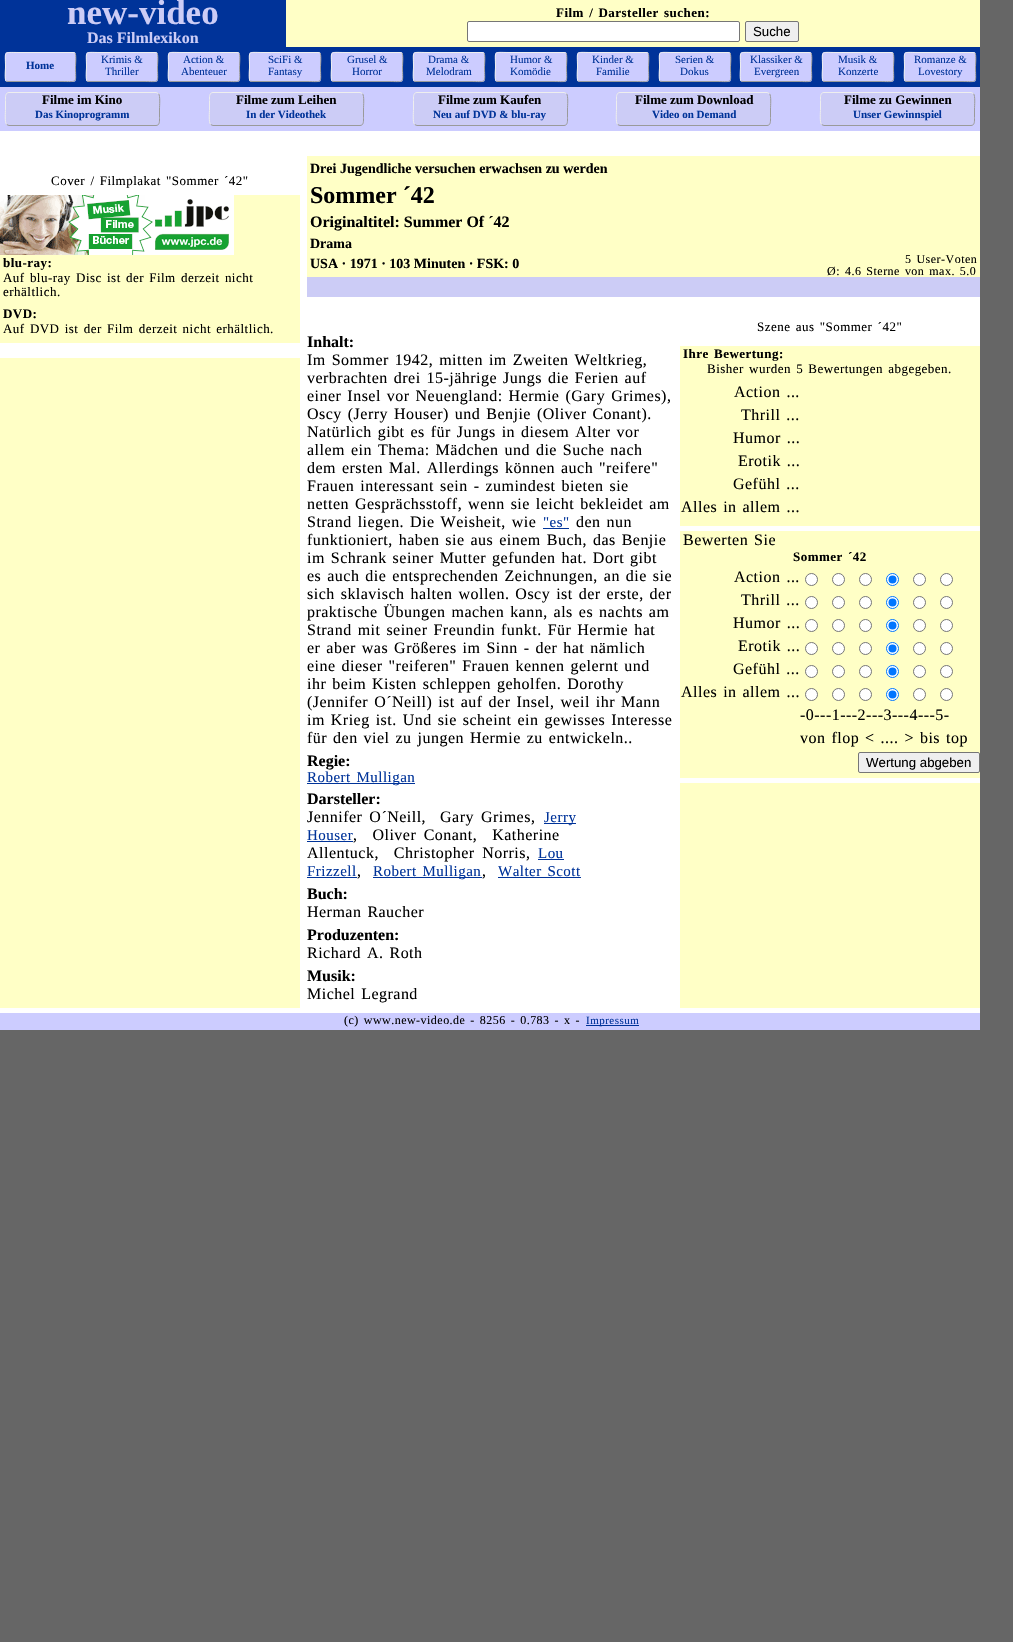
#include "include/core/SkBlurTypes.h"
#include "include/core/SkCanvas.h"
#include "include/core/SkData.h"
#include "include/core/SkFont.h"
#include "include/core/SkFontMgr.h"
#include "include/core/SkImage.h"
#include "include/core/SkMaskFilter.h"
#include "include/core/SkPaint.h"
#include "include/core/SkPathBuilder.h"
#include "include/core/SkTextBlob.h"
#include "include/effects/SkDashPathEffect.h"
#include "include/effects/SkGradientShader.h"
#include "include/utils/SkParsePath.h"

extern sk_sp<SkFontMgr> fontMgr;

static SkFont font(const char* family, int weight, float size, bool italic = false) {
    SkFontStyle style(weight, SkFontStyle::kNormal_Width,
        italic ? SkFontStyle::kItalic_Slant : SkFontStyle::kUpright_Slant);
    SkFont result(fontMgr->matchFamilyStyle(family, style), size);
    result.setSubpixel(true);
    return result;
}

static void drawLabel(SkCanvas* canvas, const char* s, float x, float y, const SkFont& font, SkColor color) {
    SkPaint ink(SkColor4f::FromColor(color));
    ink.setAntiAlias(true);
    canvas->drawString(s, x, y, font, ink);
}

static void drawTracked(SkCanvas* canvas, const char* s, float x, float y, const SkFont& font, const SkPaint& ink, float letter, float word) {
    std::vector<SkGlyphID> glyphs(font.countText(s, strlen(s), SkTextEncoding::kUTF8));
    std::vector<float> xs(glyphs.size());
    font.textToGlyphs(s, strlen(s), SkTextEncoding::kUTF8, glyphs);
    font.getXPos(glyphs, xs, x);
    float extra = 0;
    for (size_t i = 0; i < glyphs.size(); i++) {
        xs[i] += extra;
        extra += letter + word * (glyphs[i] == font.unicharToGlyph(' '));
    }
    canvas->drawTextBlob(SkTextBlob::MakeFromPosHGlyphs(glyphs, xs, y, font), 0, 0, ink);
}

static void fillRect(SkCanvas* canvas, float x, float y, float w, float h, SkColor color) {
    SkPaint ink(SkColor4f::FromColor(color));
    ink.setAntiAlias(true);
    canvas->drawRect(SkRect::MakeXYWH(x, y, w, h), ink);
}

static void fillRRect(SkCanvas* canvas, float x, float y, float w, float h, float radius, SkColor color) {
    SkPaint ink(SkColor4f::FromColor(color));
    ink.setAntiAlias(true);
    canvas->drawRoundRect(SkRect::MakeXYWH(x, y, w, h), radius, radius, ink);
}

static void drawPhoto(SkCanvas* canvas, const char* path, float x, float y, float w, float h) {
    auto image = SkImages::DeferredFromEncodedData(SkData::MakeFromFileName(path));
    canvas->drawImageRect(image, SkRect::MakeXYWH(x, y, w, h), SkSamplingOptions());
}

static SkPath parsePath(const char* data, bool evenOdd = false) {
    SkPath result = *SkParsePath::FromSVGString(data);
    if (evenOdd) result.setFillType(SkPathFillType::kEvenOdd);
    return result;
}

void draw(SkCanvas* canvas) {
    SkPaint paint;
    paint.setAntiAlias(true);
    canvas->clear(0xFF666666);
    fillRect(canvas, 0, 131, 980, 882, 0xFFFFFFFF);
    fillRect(canvas, 0, 0, 286, 47, 0xFF003399);
    SkFont font1 = font("Liberation Serif", 700, 35);
    drawLabel(canvas, "new-video", 67, 24, font1, 0xFFCCCCF6);
    SkFont font2 = font("Liberation Serif", 700, 16);
    drawLabel(canvas, "Das Filmlexikon", 87, 43, font2, 0xFFCCCCF6);
    fillRect(canvas, 286, 0, 694, 47, 0xFFFFFFC6);
    SkFont font3 = font("Liberation Serif", 700, 13);
    paint.setColor(0xFF000000);
    drawTracked(canvas, "Film / Darsteller suchen:", 556, 17, font3, paint, 0.48f, 1.5f);
    paint.setColor(0xFFFFFFFF);
    canvas->drawRoundRect(SkRect::MakeXYWH(467.5f, 21.5f, 272, 20), 1.5f, 1.5f, paint);
    paint.setStroke(true);
    paint.setStrokeWidth(1);
    paint.setColor(0xFF767676);
    canvas->drawRoundRect(SkRect::MakeXYWH(467.5f, 21.5f, 272, 20), 1.5f, 1.5f, paint);
    paint.setStroke(false);
    paint.setColor(0xFFEFEFEF);
    canvas->drawRoundRect(SkRect::MakeXYWH(745.5f, 21.5f, 53, 20), 1.5f, 1.5f, paint);
    paint.setStroke(true);
    paint.setColor(0xFF767676);
    canvas->drawRoundRect(SkRect::MakeXYWH(745.5f, 21.5f, 53, 20), 1.5f, 1.5f, paint);
    SkFont font4 = font("Liberation Sans", 400, 13.25f);
    drawLabel(canvas, "Suche", 753, 36, font4, 0xFF000000);
    fillRect(canvas, 0, 47, 980, 40, 0xFF003399);
    fillRRect(canvas, 5, 52, 71, 30, 3, 0xFFCCCCFF);
    paint.setColor(0xFF9A9A9A);
    canvas->drawPath(parsePath("M75 53C76.5 55 75.5 64.5 75.5 67C75.5 83.5 78.5 81.5 62 81.5H8L6 81"), paint);
    paint.setColor(0xFFEEEEEE);
    canvas->drawPath(parsePath("M6 81C4.5 79 5.5 69.5 5.5 67C5.5 50.5 2.5 52.5 19 52.5H73L75 53"), paint);
    SkFont font5 = font("Liberation Serif", 700, 11);
    drawLabel(canvas, "Home", 26, 69, font5, 0xFF003399);
    fillRRect(canvas, 86, 52, 72, 30, 3, 0xFFCCCCFF);
    paint.setColor(0xFF9A9A9A);
    canvas->drawPath(parsePath("M157 53C158.5 55 157.5 64.5 157.5 67C157.5 84 160.5 81.5 144 81.5H89L87 81"), paint);
    paint.setColor(0xFFEEEEEE);
    canvas->drawPath(parsePath("M87 81C85.5 79 86.5 69.5 86.5 67C86.5 50 83.5 52.5 100 52.5H155L157 53"), paint);
    SkFont font6 = font("Liberation Serif", 400, 11);
    drawLabel(canvas, "Krimis &", 101, 63, font6, 0xFF003399);
    drawLabel(canvas, "Thriller", 105, 75, font6, 0xFF003399);
    fillRRect(canvas, 168, 52, 72, 30, 3, 0xFFCCCCFF);
    paint.setColor(0xFF9A9A9A);
    canvas->drawPath(parsePath("M239 53C240.5 55 239.5 64.5 239.5 67C239.5 84 242.5 81.5 226 81.5H171L169 81"), paint);
    paint.setColor(0xFFEEEEEE);
    canvas->drawPath(parsePath("M169 81C167.5 79 168.5 69.5 168.5 67C168.5 50 165.5 52.5 182 52.5H237L239 53"), paint);
    drawLabel(canvas, "Action &", 183, 63, font6, 0xFF003399);
    drawLabel(canvas, "Abenteuer", 181, 75, font6, 0xFF003399);
    fillRRect(canvas, 249, 52, 72, 30, 3, 0xFFCCCCFF);
    paint.setColor(0xFF9A9A9A);
    canvas->drawPath(parsePath("M320 53C321.5 55 320.5 64.5 320.5 67C320.5 84 323.5 81.5 307 81.5H252L250 81"), paint);
    paint.setColor(0xFFEEEEEE);
    canvas->drawPath(parsePath("M250 81C248.5 79 249.5 69.5 249.5 67C249.5 50 246.5 52.5 263 52.5H318L320 53"), paint);
    drawLabel(canvas, "SciFi &", 268, 63, font6, 0xFF003399);
    drawLabel(canvas, "Fantasy", 268, 75, font6, 0xFF003399);
    fillRRect(canvas, 331, 52, 72, 30, 3, 0xFFCCCCFF);
    paint.setColor(0xFF9A9A9A);
    canvas->drawPath(parsePath("M402 53C403.5 55 402.5 64.5 402.5 67C402.5 84 405.5 81.5 389 81.5H334L332 81"), paint);
    paint.setColor(0xFFEEEEEE);
    canvas->drawPath(parsePath("M332 81C330.5 79 331.5 69.5 331.5 67C331.5 50 328.5 52.5 345 52.5H400L402 53"), paint);
    drawLabel(canvas, "Grusel &", 347, 63, font6, 0xFF003399);
    drawLabel(canvas, "Horror", 352, 75, font6, 0xFF003399);
    fillRRect(canvas, 413, 52, 72, 30, 3, 0xFFCCCCFF);
    paint.setColor(0xFF9A9A9A);
    canvas->drawPath(parsePath("M484 53C485.5 55 484.5 64.5 484.5 67C484.5 84 487.5 81.5 471 81.5H416L414 81"), paint);
    paint.setColor(0xFFEEEEEE);
    canvas->drawPath(parsePath("M414 81C412.5 79 413.5 69.5 413.5 67C413.5 50 410.5 52.5 427 52.5H482L484 53"), paint);
    drawLabel(canvas, "Drama &", 428, 63, font6, 0xFF003399);
    drawLabel(canvas, "Melodram", 426, 75, font6, 0xFF003399);
    fillRRect(canvas, 495, 52, 72, 30, 3, 0xFFCCCCFF);
    paint.setColor(0xFF9A9A9A);
    canvas->drawPath(parsePath("M566 53C567.5 55 566.5 64.5 566.5 67C566.5 84 569.5 81.5 553 81.5H498L496 81"), paint);
    paint.setColor(0xFFEEEEEE);
    canvas->drawPath(parsePath("M496 81C494.5 79 495.5 69.5 495.5 67C495.5 50 492.5 52.5 509 52.5H564L566 53"), paint);
    drawLabel(canvas, "Humor &", 510, 63, font6, 0xFF003399);
    drawLabel(canvas, "Komödie", 510, 75, font6, 0xFF003399);
    fillRRect(canvas, 577, 52, 72, 30, 3, 0xFFCCCCFF);
    paint.setColor(0xFF9A9A9A);
    canvas->drawPath(parsePath("M648 53C649.5 55 648.5 64.5 648.5 67C648.5 84 651.5 81.5 635 81.5H580L578 81"), paint);
    paint.setColor(0xFFEEEEEE);
    canvas->drawPath(parsePath("M578 81C576.5 79 577.5 69.5 577.5 67C577.5 50 574.5 52.5 591 52.5H646L648 53"), paint);
    drawLabel(canvas, "Kinder &", 592, 63, font6, 0xFF003399);
    drawLabel(canvas, "Familie", 596, 75, font6, 0xFF003399);
    fillRRect(canvas, 659, 52, 72, 30, 3, 0xFFCCCCFF);
    paint.setColor(0xFF9A9A9A);
    canvas->drawPath(parsePath("M730 53C731.5 55 730.5 64.5 730.5 67C730.5 84 733.5 81.5 717 81.5H662L660 81"), paint);
    paint.setColor(0xFFEEEEEE);
    canvas->drawPath(parsePath("M660 81C658.5 79 659.5 69.5 659.5 67C659.5 50 656.5 52.5 673 52.5H728L730 53"), paint);
    drawLabel(canvas, "Serien &", 675, 63, font6, 0xFF003399);
    drawLabel(canvas, "Dokus", 680, 75, font6, 0xFF003399);
    fillRRect(canvas, 740, 52, 72, 30, 3, 0xFFCCCCFF);
    paint.setColor(0xFF9A9A9A);
    canvas->drawPath(parsePath("M811 53C812.5 55 811.5 64.5 811.5 67C811.5 84 814.5 81.5 798 81.5H743L741 81"), paint);
    paint.setColor(0xFFEEEEEE);
    canvas->drawPath(parsePath("M741 81C739.5 79 740.5 69.5 740.5 67C740.5 50 737.5 52.5 754 52.5H809L811 53"), paint);
    drawLabel(canvas, "Klassiker &", 750, 63, font6, 0xFF003399);
    drawLabel(canvas, "Evergreen", 754, 75, font6, 0xFF003399);
    fillRRect(canvas, 822, 52, 72, 30, 3, 0xFFCCCCFF);
    paint.setColor(0xFF9A9A9A);
    canvas->drawPath(parsePath("M893 53C894.5 55 893.5 64.5 893.5 67C893.5 84 896.5 81.5 880 81.5H825L823 81"), paint);
    paint.setColor(0xFFEEEEEE);
    canvas->drawPath(parsePath("M823 81C821.5 79 822.5 69.5 822.5 67C822.5 50 819.5 52.5 836 52.5H891L893 53"), paint);
    drawLabel(canvas, "Musik &", 838, 63, font6, 0xFF003399);
    drawLabel(canvas, "Konzerte", 838, 75, font6, 0xFF003399);
    fillRRect(canvas, 904, 52, 72, 30, 3, 0xFFCCCCFF);
    paint.setColor(0xFF9A9A9A);
    canvas->drawPath(parsePath("M975 53C976.5 55 975.5 64.5 975.5 67C975.5 84 978.5 81.5 962 81.5H907L905 81"), paint);
    paint.setColor(0xFFEEEEEE);
    canvas->drawPath(parsePath("M905 81C903.5 79 904.5 69.5 904.5 67C904.5 50 901.5 52.5 918 52.5H973L975 53"), paint);
    drawLabel(canvas, "Romanze &", 914, 63, font6, 0xFF003399);
    drawLabel(canvas, "Lovestory", 918, 75, font6, 0xFF003399);
    fillRect(canvas, 0, 87, 980, 44, 0xFFCCCCFF);
    fillRRect(canvas, 5, 92, 155, 34, 4, 0xFFCCCCF6);
    paint.setColor(0xFF9A9A9A);
    canvas->drawPath(parsePath("M158.5 93.5C160.5 96 159.5 106 159.5 109V117.5C159.5 120.5 160 125.5 156 125.5H9L6.5 124.5"), paint);
    paint.setColor(0xFFEEEEEE);
    canvas->drawPath(parsePath("M6.5 124.5C4.5 122 5.5 112 5.5 109V100.5C5.5 97.5 5 92.5 9 92.5H156L158.5 93.5"), paint);
    drawLabel(canvas, "Filme im Kino", 42, 104, font3, 0xFF000000);
    drawLabel(canvas, "Das Kinoprogramm", 35, 118, font5, 0xFF003399);
    fillRRect(canvas, 209, 92, 155, 34, 4, 0xFFCCCCF6);
    paint.setColor(0xFF9A9A9A);
    canvas->drawPath(parsePath("M362.5 93.5C364.5 96 363.5 106 363.5 109V117.5C363.5 120.5 364 125.5 360 125.5H213L210.5 124.5"), paint);
    paint.setColor(0xFFEEEEEE);
    canvas->drawPath(parsePath("M210.5 124.5C208.5 122 209.5 112 209.5 109V100.5C209.5 97.5 209 92.5 213 92.5H360L362.5 93.5"), paint);
    drawLabel(canvas, "Filme zum Leihen", 236, 104, font3, 0xFF000000);
    drawLabel(canvas, "In der Videothek", 246, 118, font5, 0xFF003399);
    fillRRect(canvas, 413, 92, 155, 34, 4, 0xFFCCCCF6);
    paint.setColor(0xFF9A9A9A);
    canvas->drawPath(parsePath("M566.5 93.5C568.5 96 567.5 106 567.5 109V117.5C567.5 120.5 568 125.5 564 125.5H417L414.5 124.5"), paint);
    paint.setColor(0xFFEEEEEE);
    canvas->drawPath(parsePath("M414.5 124.5C412.5 122 413.5 112 413.5 109V100.5C413.5 97.5 413 92.5 417 92.5H564L566.5 93.5"), paint);
    drawLabel(canvas, "Filme zum Kaufen", 438, 104, font3, 0xFF000000);
    drawLabel(canvas, "Neu auf DVD & blu-ray", 433, 118, font5, 0xFF003399);
    fillRRect(canvas, 616, 92, 155, 34, 4, 0xFFCCCCF6);
    paint.setColor(0xFF9A9A9A);
    canvas->drawPath(parsePath("M769.5 93.5C771.5 96 770.5 106 770.5 109V117.5C770.5 120.5 771 125.5 767 125.5H620L617.5 124.5"), paint);
    paint.setColor(0xFFEEEEEE);
    canvas->drawPath(parsePath("M617.5 124.5C615.5 122 616.5 112 616.5 109V100.5C616.5 97.5 616 92.5 620 92.5H767L769.5 93.5"), paint);
    drawLabel(canvas, "Filme zum Download", 635, 104, font3, 0xFF000000);
    drawLabel(canvas, "Video on Demand", 652, 118, font5, 0xFF003399);
    fillRRect(canvas, 820, 92, 155, 34, 4, 0xFFCCCCF6);
    paint.setColor(0xFF9A9A9A);
    canvas->drawPath(parsePath("M973.5 93.5C975.5 96 974.5 106 974.5 109V117.5C974.5 120.5 975 125.5 971 125.5H824L821.5 124.5"), paint);
    paint.setColor(0xFFEEEEEE);
    canvas->drawPath(parsePath("M821.5 124.5C819.5 122 820.5 112 820.5 109V100.5C820.5 97.5 820 92.5 824 92.5H971L973.5 93.5"), paint);
    drawLabel(canvas, "Filme zu Gewinnen", 844, 104, font3, 0xFF000000);
    drawLabel(canvas, "Unser Gewinnspiel", 853, 118, font5, 0xFF003399);
    fillRect(canvas, 0, 195, 300, 813, 0xFFFFFFC6);
    SkFont font7 = font("Liberation Serif", 400, 13);
    paint.setStroke(false);
    paint.setColor(0xFF000000);
    drawTracked(canvas, "Cover / Filmplakat \"Sommer ´42\"", 51, 185, font7, paint, 0.48f, 1.5f);
    drawPhoto(canvas, "assets/img1.png", 0, 195, 234, 60);
    drawTracked(canvas, "blu-ray:", 3, 267, font3, paint, 0.48f, 0);
    drawTracked(canvas, "Auf blu-ray Disc ist der Film derzeit nicht", 3, 282, font7, paint, 0.48f, 1.5f);
    drawTracked(canvas, "erhältlich.", 3, 296, font7, paint, 0.48f, 0);
    drawTracked(canvas, "DVD:", 3, 318, font3, paint, 0.48f, 0);
    drawTracked(canvas, "Auf DVD ist der Film derzeit nicht erhältlich.", 3, 333, font7, paint, 0.48f, 1.5f);
    fillRect(canvas, 0, 343, 300, 15, 0xFFFFFFFF);
    fillRect(canvas, 307, 156, 673, 121, 0xFFFFFFC6);
    SkFont font8 = font("Liberation Serif", 700, 14);
    drawLabel(canvas, "Drei Jugendliche versuchen erwachsen zu werden", 310, 173, font8, 0xFF000000);
    SkFont font9 = font("Liberation Serif", 700, 24);
    drawLabel(canvas, "Sommer ´42", 310, 203, font9, 0xFF000000);
    drawLabel(canvas, "Originaltitel: Summer Of ´42", 310, 227, font2, 0xFF000000);
    drawLabel(canvas, "Drama", 310, 248, font8, 0xFF000000);
    drawLabel(canvas, "USA · 1971 · 103 Minuten · FSK: 0", 310, 268, font8, 0xFF000000);
    SkFont font10 = font("Liberation Serif", 400, 12);
    drawTracked(canvas, "5 User-Voten", 905, 263, font10, paint, 0.48f, 1.5f);
    drawTracked(canvas, "Ø: 4.6 Sterne von max. 5.0", 827, 275, font10, paint, 0.48f, 1.5f);
    fillRect(canvas, 307, 277, 673, 20, 0xFFCCCCF6);
    drawLabel(canvas, "Inhalt:", 307, 347, font2, 0xFF000000);
    SkFont font11 = font("Liberation Serif", 400, 16);
    drawTracked(canvas, "Im Sommer 1942, mitten im Zweiten Weltkrieg,", 307, 365, font11, paint, 0.48f, 1.5f);
    drawTracked(canvas, "verbrachten drei 15-jährige Jungs die Ferien auf", 307, 383, font11, paint, 0.48f, 1.5f);
    drawTracked(canvas, "einer Insel vor Neuengland: Hermie (Gary Grimes),", 307, 401, font11, paint, 0.48f, 1.5f);
    drawTracked(canvas, "Oscy (Jerry Houser) und Benjie (Oliver Conant).", 307, 419, font11, paint, 0.48f, 1.5f);
    drawTracked(canvas, "Natürlich gibt es für Jungs in diesem Alter vor", 307, 437, font11, paint, 0.48f, 1.5f);
    drawTracked(canvas, "allem ein Thema: Mädchen und die Suche nach", 307, 455, font11, paint, 0.48f, 1.5f);
    drawTracked(canvas, "dem ersten Mal. Allerdings können auch \"reifere\"", 307, 473, font11, paint, 0.48f, 1.5f);
    drawTracked(canvas, "Frauen interessant sein - zumindest bieten sie", 307, 491, font11, paint, 0.48f, 1.5f);
    drawTracked(canvas, "netten Gesprächsstoff, wenn sie leicht bekleidet am", 307, 509, font11, paint, 0.48f, 1.5f);
    drawTracked(canvas, "Strand liegen. Die Weisheit, wie", 307, 527, font11, paint, 0.48f, 1.5f);
    SkFont font12 = font("Liberation Serif", 400, 15);
    paint.setColor(0xFF003399);
    drawTracked(canvas, "\"es\"", 543, 527, font12, paint, 0.48f, 0);
    fillRect(canvas, 543, 528, 26, 1, 0xFF003399);
    paint.setColor(0xFF000000);
    drawTracked(canvas, "den nun", 576, 527, font11, paint, 0.48f, 1.5f);
    drawTracked(canvas, "funktioniert, haben sie aus einem Buch, das Benjie", 307, 545, font11, paint, 0.48f, 1.5f);
    drawTracked(canvas, "im Schrank seiner Mutter gefunden hat. Dort gibt", 307, 563, font11, paint, 0.48f, 1.5f);
    drawTracked(canvas, "es auch die entsprechenden Zeichnungen, an die sie", 307, 581, font11, paint, 0.48f, 1.5f);
    drawTracked(canvas, "sich sklavisch halten wollen. Oscy ist der erste, der", 307, 599, font11, paint, 0.48f, 1.5f);
    drawTracked(canvas, "praktische Übungen machen kann, als es nachts am", 307, 617, font11, paint, 0.48f, 1.5f);
    drawTracked(canvas, "Strand mit seiner Freundin funkt. Für Hermie hat", 307, 635, font11, paint, 0.48f, 1.5f);
    drawTracked(canvas, "er aber was Größeres im Sinn - der hat nämlich", 307, 653, font11, paint, 0.48f, 1.5f);
    drawTracked(canvas, "eine dieser \"reiferen\" Frauen kennen gelernt und", 307, 671, font11, paint, 0.48f, 1.5f);
    drawTracked(canvas, "ihr beim Kisten schleppen geholfen. Dorothy", 307, 689, font11, paint, 0.48f, 1.5f);
    drawTracked(canvas, "(Jennifer O´Neill) ist auf der Insel, weil ihr Mann", 307, 707, font11, paint, 0.48f, 1.5f);
    drawTracked(canvas, "im Krieg ist. Und sie scheint ein gewisses Interesse", 307, 725, font11, paint, 0.48f, 1.5f);
    drawTracked(canvas, "für den viel zu jungen Hermie zu entwickeln..", 307, 743, font11, paint, 0.48f, 1.5f);
    drawLabel(canvas, "Regie:", 307, 766, font2, 0xFF000000);
    fillRect(canvas, 307, 783, 108, 1, 0xFF003399);
    paint.setColor(0xFF003399);
    drawTracked(canvas, "Robert Mulligan", 307, 782, font12, paint, 0.48f, 1.5f);
    drawLabel(canvas, "Darsteller:", 307, 804, font2, 0xFF000000);
    paint.setColor(0xFF000000);
    drawTracked(canvas, "Jennifer O´Neill,  Gary Grimes,", 307, 822, font11, paint, 0.48f, 2.5f);
    fillRect(canvas, 544, 823, 32, 1, 0xFF003399);
    paint.setColor(0xFF003399);
    drawTracked(canvas, "Jerry", 544, 822, font12, paint, 0.48f, 0);
    drawTracked(canvas, "Houser", 307, 840, font12, paint, 0.48f, 0);
    fillRect(canvas, 307, 841, 46, 1, 0xFF003399);
    paint.setColor(0xFF000000);
    drawTracked(canvas, ",  Oliver Conant,  Katherine", 353, 840, font11, paint, 0.48f, 3);
    drawTracked(canvas, "Allentuck,  Christopher Norris,", 307, 858, font11, paint, 0.48f, 3);
    paint.setColor(0xFF003399);
    drawTracked(canvas, "Lou", 538, 858, font12, paint, 0.48f, 0);
    fillRect(canvas, 538, 859, 26, 1, 0xFF003399);
    drawTracked(canvas, "Frizzell", 307, 876, font12, paint, 0.48f, 0);
    fillRect(canvas, 307, 877, 50, 1, 0xFF003399);
    paint.setColor(0xFF000000);
    drawTracked(canvas, ",", 357, 876, font11, paint, 0.48f, 0);
    fillRect(canvas, 373, 877, 109, 1, 0xFF003399);
    paint.setColor(0xFF003399);
    drawTracked(canvas, "Robert Mulligan", 373, 876, font12, paint, 0.48f, 1.5f);
    paint.setColor(0xFF000000);
    drawTracked(canvas, ",", 482, 876, font11, paint, 0.48f, 0);
    paint.setColor(0xFF003399);
    drawTracked(canvas, "Walter Scott", 498, 876, font12, paint, 0.48f, 1.5f);
    fillRect(canvas, 498, 877, 83, 1, 0xFF003399);
    drawLabel(canvas, "Buch:", 307, 899, font2, 0xFF000000);
    paint.setColor(0xFF000000);
    drawTracked(canvas, "Herman Raucher", 307, 917, font11, paint, 0.48f, 1.5f);
    drawLabel(canvas, "Produzenten:", 307, 940, font2, 0xFF000000);
    drawTracked(canvas, "Richard A. Roth", 307, 958, font11, paint, 0.48f, 1.5f);
    drawLabel(canvas, "Musik:", 307, 981, font2, 0xFF000000);
    drawTracked(canvas, "Michel Legrand", 307, 999, font11, paint, 0.48f, 1.5f);
    fillRect(canvas, 680, 346, 300, 662, 0xFFFFFFC6);
    drawTracked(canvas, "Szene aus \"Sommer ´42\"", 757, 331, font7, paint, 0.48f, 1.5f);
    drawTracked(canvas, "Ihre Bewertung:", 683, 358, font3, paint, 0.48f, 1.5f);
    drawTracked(canvas, "Bisher wurden 5 Bewertungen abgegeben.", 707, 373, font7, paint, 0.48f, 1.5f);
    drawTracked(canvas, "Action ...", 734, 397, font11, paint, 0.48f, 1.5f);
    drawTracked(canvas, "Thrill ...", 741, 420, font11, paint, 0.48f, 1.5f);
    drawTracked(canvas, "Humor ...", 733, 443, font11, paint, 0.48f, 1.5f);
    drawTracked(canvas, "Erotik ...", 738, 466, font11, paint, 0.48f, 1.5f);
    drawTracked(canvas, "Gefühl ...", 733, 489, font11, paint, 0.48f, 1.5f);
    drawTracked(canvas, "Alles in allem ...", 681, 512, font11, paint, 0.48f, 1.5f);
    fillRect(canvas, 680, 526, 300, 5, 0xFFFFFFFF);
    drawTracked(canvas, "Bewerten Sie", 683, 545, font11, paint, 0.48f, 1.5f);
    drawTracked(canvas, "Sommer ´42", 793, 561, font3, paint, 0.48f, 1.5f);
    drawTracked(canvas, "Action ...", 734, 582, font11, paint, 0.48f, 1.5f);
    paint.setColor(0xFFFFFFFF);
    canvas->drawCircle(811.5f, 579.5f, 6, paint);
    paint.setStroke(true);
    paint.setColor(0xFF767676);
    canvas->drawCircle(811.5f, 579.5f, 6, paint);
    paint.setStroke(false);
    paint.setColor(0xFFFFFFFF);
    canvas->drawCircle(838.5f, 579.5f, 6, paint);
    paint.setStroke(true);
    paint.setColor(0xFF767676);
    canvas->drawCircle(838.5f, 579.5f, 6, paint);
    paint.setStroke(false);
    paint.setColor(0xFFFFFFFF);
    canvas->drawCircle(865.5f, 579.5f, 6, paint);
    paint.setStroke(true);
    paint.setColor(0xFF767676);
    canvas->drawCircle(865.5f, 579.5f, 6, paint);
    paint.setStroke(false);
    paint.setColor(0xFFFFFFFF);
    canvas->drawCircle(892.5f, 579.5f, 6, paint);
    paint.setStroke(true);
    paint.setColor(0xFF0075FF);
    canvas->drawCircle(892.5f, 579.5f, 6, paint);
    paint.setStroke(false);
    canvas->drawCircle(892.5f, 579.5f, 4, paint);
    paint.setColor(0xFFFFFFFF);
    canvas->drawCircle(919.5f, 579.5f, 6, paint);
    paint.setStroke(true);
    paint.setColor(0xFF767676);
    canvas->drawCircle(919.5f, 579.5f, 6, paint);
    paint.setStroke(false);
    paint.setColor(0xFFFFFFFF);
    canvas->drawCircle(946.5f, 579.5f, 6, paint);
    paint.setStroke(true);
    paint.setColor(0xFF767676);
    canvas->drawCircle(946.5f, 579.5f, 6, paint);
    paint.setStroke(false);
    paint.setColor(0xFF000000);
    drawTracked(canvas, "Thrill ...", 741, 605, font11, paint, 0.48f, 1.5f);
    paint.setColor(0xFFFFFFFF);
    canvas->drawCircle(811.5f, 602.5f, 6, paint);
    paint.setStroke(true);
    paint.setColor(0xFF767676);
    canvas->drawCircle(811.5f, 602.5f, 6, paint);
    paint.setStroke(false);
    paint.setColor(0xFFFFFFFF);
    canvas->drawCircle(838.5f, 602.5f, 6, paint);
    paint.setStroke(true);
    paint.setColor(0xFF767676);
    canvas->drawCircle(838.5f, 602.5f, 6, paint);
    paint.setStroke(false);
    paint.setColor(0xFFFFFFFF);
    canvas->drawCircle(865.5f, 602.5f, 6, paint);
    paint.setStroke(true);
    paint.setColor(0xFF767676);
    canvas->drawCircle(865.5f, 602.5f, 6, paint);
    paint.setStroke(false);
    paint.setColor(0xFFFFFFFF);
    canvas->drawCircle(892.5f, 602.5f, 6, paint);
    paint.setStroke(true);
    paint.setColor(0xFF0075FF);
    canvas->drawCircle(892.5f, 602.5f, 6, paint);
    paint.setStroke(false);
    canvas->drawCircle(892.5f, 602.5f, 4, paint);
    paint.setColor(0xFFFFFFFF);
    canvas->drawCircle(919.5f, 602.5f, 6, paint);
    paint.setStroke(true);
    paint.setColor(0xFF767676);
    canvas->drawCircle(919.5f, 602.5f, 6, paint);
    paint.setStroke(false);
    paint.setColor(0xFFFFFFFF);
    canvas->drawCircle(946.5f, 602.5f, 6, paint);
    paint.setStroke(true);
    paint.setColor(0xFF767676);
    canvas->drawCircle(946.5f, 602.5f, 6, paint);
    paint.setStroke(false);
    paint.setColor(0xFF000000);
    drawTracked(canvas, "Humor ...", 733, 628, font11, paint, 0.48f, 1.5f);
    paint.setColor(0xFFFFFFFF);
    canvas->drawCircle(811.5f, 625.5f, 6, paint);
    paint.setStroke(true);
    paint.setColor(0xFF767676);
    canvas->drawCircle(811.5f, 625.5f, 6, paint);
    paint.setStroke(false);
    paint.setColor(0xFFFFFFFF);
    canvas->drawCircle(838.5f, 625.5f, 6, paint);
    paint.setStroke(true);
    paint.setColor(0xFF767676);
    canvas->drawCircle(838.5f, 625.5f, 6, paint);
    paint.setStroke(false);
    paint.setColor(0xFFFFFFFF);
    canvas->drawCircle(865.5f, 625.5f, 6, paint);
    paint.setStroke(true);
    paint.setColor(0xFF767676);
    canvas->drawCircle(865.5f, 625.5f, 6, paint);
    paint.setStroke(false);
    paint.setColor(0xFFFFFFFF);
    canvas->drawCircle(892.5f, 625.5f, 6, paint);
    paint.setStroke(true);
    paint.setColor(0xFF0075FF);
    canvas->drawCircle(892.5f, 625.5f, 6, paint);
    paint.setStroke(false);
    canvas->drawCircle(892.5f, 625.5f, 4, paint);
    paint.setColor(0xFFFFFFFF);
    canvas->drawCircle(919.5f, 625.5f, 6, paint);
    paint.setStroke(true);
    paint.setColor(0xFF767676);
    canvas->drawCircle(919.5f, 625.5f, 6, paint);
    paint.setStroke(false);
    paint.setColor(0xFFFFFFFF);
    canvas->drawCircle(946.5f, 625.5f, 6, paint);
    paint.setStroke(true);
    paint.setColor(0xFF767676);
    canvas->drawCircle(946.5f, 625.5f, 6, paint);
    paint.setStroke(false);
    paint.setColor(0xFF000000);
    drawTracked(canvas, "Erotik ...", 738, 651, font11, paint, 0.48f, 1.5f);
    paint.setColor(0xFFFFFFFF);
    canvas->drawCircle(811.5f, 648.5f, 6, paint);
    paint.setStroke(true);
    paint.setColor(0xFF767676);
    canvas->drawCircle(811.5f, 648.5f, 6, paint);
    paint.setStroke(false);
    paint.setColor(0xFFFFFFFF);
    canvas->drawCircle(838.5f, 648.5f, 6, paint);
    paint.setStroke(true);
    paint.setColor(0xFF767676);
    canvas->drawCircle(838.5f, 648.5f, 6, paint);
    paint.setStroke(false);
    paint.setColor(0xFFFFFFFF);
    canvas->drawCircle(865.5f, 648.5f, 6, paint);
    paint.setStroke(true);
    paint.setColor(0xFF767676);
    canvas->drawCircle(865.5f, 648.5f, 6, paint);
    paint.setStroke(false);
    paint.setColor(0xFFFFFFFF);
    canvas->drawCircle(892.5f, 648.5f, 6, paint);
    paint.setStroke(true);
    paint.setColor(0xFF0075FF);
    canvas->drawCircle(892.5f, 648.5f, 6, paint);
    paint.setStroke(false);
    canvas->drawCircle(892.5f, 648.5f, 4, paint);
    paint.setColor(0xFFFFFFFF);
    canvas->drawCircle(919.5f, 648.5f, 6, paint);
    paint.setStroke(true);
    paint.setColor(0xFF767676);
    canvas->drawCircle(919.5f, 648.5f, 6, paint);
    paint.setStroke(false);
    paint.setColor(0xFFFFFFFF);
    canvas->drawCircle(946.5f, 648.5f, 6, paint);
    paint.setStroke(true);
    paint.setColor(0xFF767676);
    canvas->drawCircle(946.5f, 648.5f, 6, paint);
    paint.setStroke(false);
    paint.setColor(0xFF000000);
    drawTracked(canvas, "Gefühl ...", 733, 674, font11, paint, 0.48f, 1.5f);
    paint.setColor(0xFFFFFFFF);
    canvas->drawCircle(811.5f, 671.5f, 6, paint);
    paint.setStroke(true);
    paint.setColor(0xFF767676);
    canvas->drawCircle(811.5f, 671.5f, 6, paint);
    paint.setStroke(false);
    paint.setColor(0xFFFFFFFF);
    canvas->drawCircle(838.5f, 671.5f, 6, paint);
    paint.setStroke(true);
    paint.setColor(0xFF767676);
    canvas->drawCircle(838.5f, 671.5f, 6, paint);
    paint.setStroke(false);
    paint.setColor(0xFFFFFFFF);
    canvas->drawCircle(865.5f, 671.5f, 6, paint);
    paint.setStroke(true);
    paint.setColor(0xFF767676);
    canvas->drawCircle(865.5f, 671.5f, 6, paint);
    paint.setStroke(false);
    paint.setColor(0xFFFFFFFF);
    canvas->drawCircle(892.5f, 671.5f, 6, paint);
    paint.setStroke(true);
    paint.setColor(0xFF0075FF);
    canvas->drawCircle(892.5f, 671.5f, 6, paint);
    paint.setStroke(false);
    canvas->drawCircle(892.5f, 671.5f, 4, paint);
    paint.setColor(0xFFFFFFFF);
    canvas->drawCircle(919.5f, 671.5f, 6, paint);
    paint.setStroke(true);
    paint.setColor(0xFF767676);
    canvas->drawCircle(919.5f, 671.5f, 6, paint);
    paint.setStroke(false);
    paint.setColor(0xFFFFFFFF);
    canvas->drawCircle(946.5f, 671.5f, 6, paint);
    paint.setStroke(true);
    paint.setColor(0xFF767676);
    canvas->drawCircle(946.5f, 671.5f, 6, paint);
    paint.setStroke(false);
    paint.setColor(0xFF000000);
    drawTracked(canvas, "Alles in allem ...", 681, 697, font11, paint, 0.48f, 1.5f);
    paint.setColor(0xFFFFFFFF);
    canvas->drawCircle(811.5f, 694.5f, 6, paint);
    paint.setStroke(true);
    paint.setColor(0xFF767676);
    canvas->drawCircle(811.5f, 694.5f, 6, paint);
    paint.setStroke(false);
    paint.setColor(0xFFFFFFFF);
    canvas->drawCircle(838.5f, 694.5f, 6, paint);
    paint.setStroke(true);
    paint.setColor(0xFF767676);
    canvas->drawCircle(838.5f, 694.5f, 6, paint);
    paint.setStroke(false);
    paint.setColor(0xFFFFFFFF);
    canvas->drawCircle(865.5f, 694.5f, 6, paint);
    paint.setStroke(true);
    paint.setColor(0xFF767676);
    canvas->drawCircle(865.5f, 694.5f, 6, paint);
    paint.setStroke(false);
    paint.setColor(0xFFFFFFFF);
    canvas->drawCircle(892.5f, 694.5f, 6, paint);
    paint.setStroke(true);
    paint.setColor(0xFF0075FF);
    canvas->drawCircle(892.5f, 694.5f, 6, paint);
    paint.setStroke(false);
    canvas->drawCircle(892.5f, 694.5f, 4, paint);
    paint.setColor(0xFFFFFFFF);
    canvas->drawCircle(919.5f, 694.5f, 6, paint);
    paint.setStroke(true);
    paint.setColor(0xFF767676);
    canvas->drawCircle(919.5f, 694.5f, 6, paint);
    paint.setStroke(false);
    paint.setColor(0xFFFFFFFF);
    canvas->drawCircle(946.5f, 694.5f, 6, paint);
    paint.setStroke(true);
    paint.setColor(0xFF767676);
    canvas->drawCircle(946.5f, 694.5f, 6, paint);
    paint.setStroke(false);
    paint.setColor(0xFF000000);
    drawTracked(canvas, "-0---1---2---3---4---5-", 800, 720, font11, paint, 0.48f, 0);
    drawTracked(canvas, "von flop < .... > bis top", 800, 743, font11, paint, 0.48f, 1.5f);
    paint.setColor(0xFFEFEFEF);
    canvas->drawRoundRect(SkRect::MakeXYWH(858.5f, 752.5f, 121, 20), 1.5f, 1.5f, paint);
    paint.setStroke(true);
    paint.setColor(0xFF767676);
    canvas->drawRoundRect(SkRect::MakeXYWH(858.5f, 752.5f, 121, 20), 1.5f, 1.5f, paint);
    drawLabel(canvas, "Wertung abgeben", 866, 767, font4, 0xFF000000);
    fillRect(canvas, 680, 778, 300, 5, 0xFFFFFFFF);
    fillRect(canvas, 0, 1013, 980, 17, 0xFFCCCCFF);
    paint.setStroke(false);
    paint.setColor(0xFF000000);
    drawTracked(canvas, "(c) www.new-video.de - 8256 - 0.783 - x -", 344, 1024, font10, paint, 0.48f, 1.5f);
    fillRect(canvas, 586, 1025, 53, 1, 0xFF003399);
    paint.setColor(0xFF003399);
    drawTracked(canvas, "Impressum", 586, 1024, font6, paint, 0.48f, 0);
}
